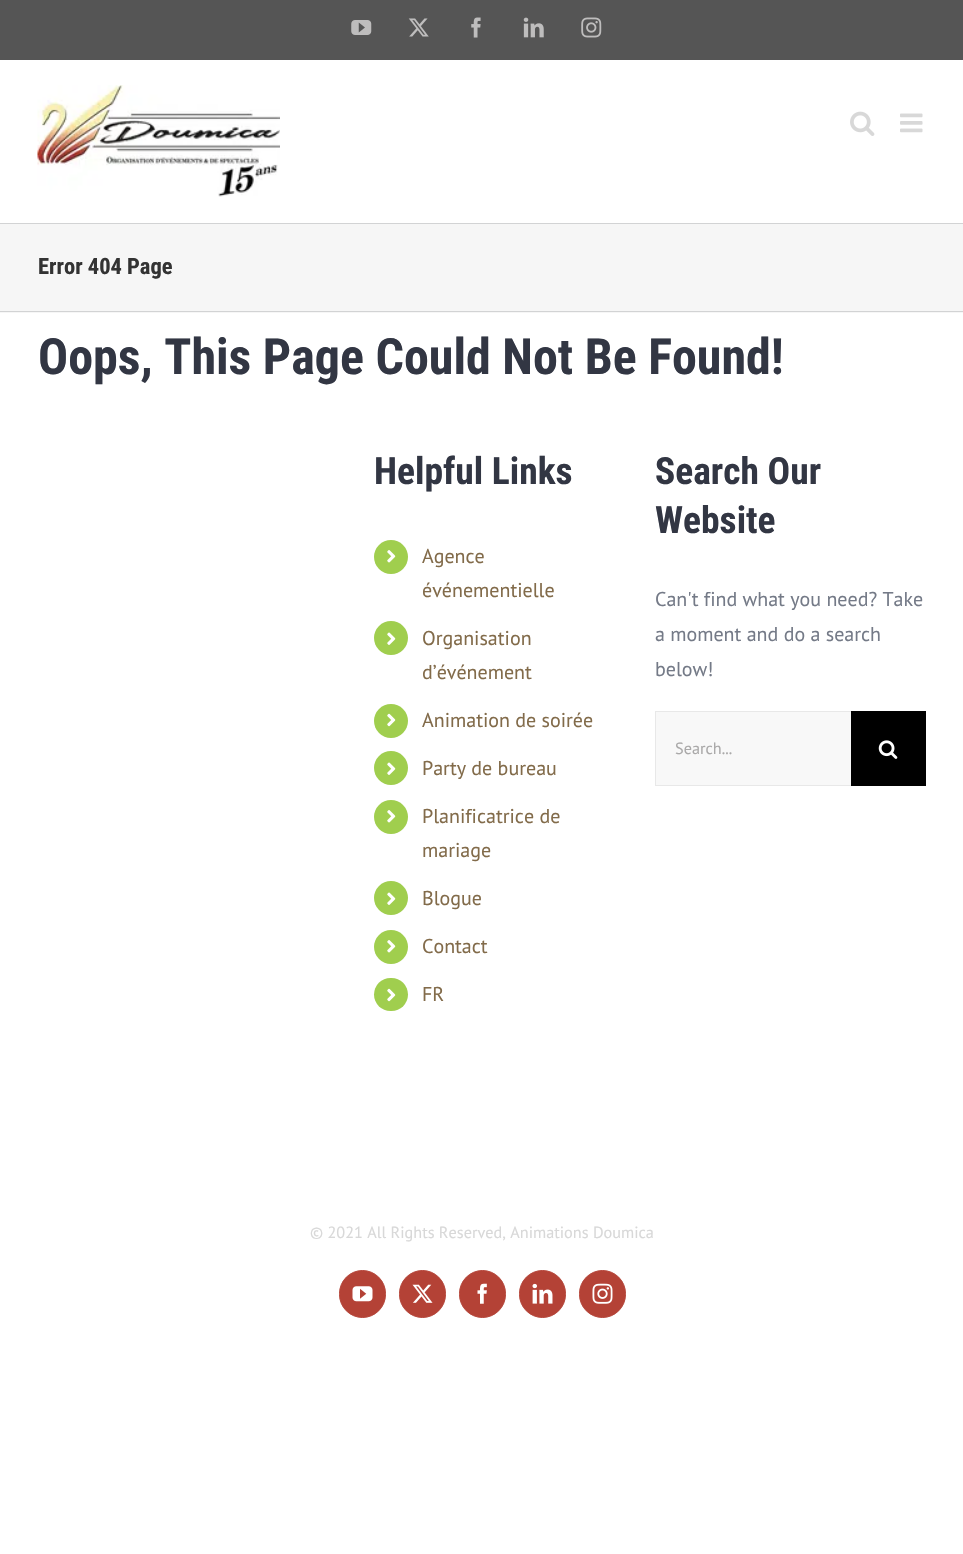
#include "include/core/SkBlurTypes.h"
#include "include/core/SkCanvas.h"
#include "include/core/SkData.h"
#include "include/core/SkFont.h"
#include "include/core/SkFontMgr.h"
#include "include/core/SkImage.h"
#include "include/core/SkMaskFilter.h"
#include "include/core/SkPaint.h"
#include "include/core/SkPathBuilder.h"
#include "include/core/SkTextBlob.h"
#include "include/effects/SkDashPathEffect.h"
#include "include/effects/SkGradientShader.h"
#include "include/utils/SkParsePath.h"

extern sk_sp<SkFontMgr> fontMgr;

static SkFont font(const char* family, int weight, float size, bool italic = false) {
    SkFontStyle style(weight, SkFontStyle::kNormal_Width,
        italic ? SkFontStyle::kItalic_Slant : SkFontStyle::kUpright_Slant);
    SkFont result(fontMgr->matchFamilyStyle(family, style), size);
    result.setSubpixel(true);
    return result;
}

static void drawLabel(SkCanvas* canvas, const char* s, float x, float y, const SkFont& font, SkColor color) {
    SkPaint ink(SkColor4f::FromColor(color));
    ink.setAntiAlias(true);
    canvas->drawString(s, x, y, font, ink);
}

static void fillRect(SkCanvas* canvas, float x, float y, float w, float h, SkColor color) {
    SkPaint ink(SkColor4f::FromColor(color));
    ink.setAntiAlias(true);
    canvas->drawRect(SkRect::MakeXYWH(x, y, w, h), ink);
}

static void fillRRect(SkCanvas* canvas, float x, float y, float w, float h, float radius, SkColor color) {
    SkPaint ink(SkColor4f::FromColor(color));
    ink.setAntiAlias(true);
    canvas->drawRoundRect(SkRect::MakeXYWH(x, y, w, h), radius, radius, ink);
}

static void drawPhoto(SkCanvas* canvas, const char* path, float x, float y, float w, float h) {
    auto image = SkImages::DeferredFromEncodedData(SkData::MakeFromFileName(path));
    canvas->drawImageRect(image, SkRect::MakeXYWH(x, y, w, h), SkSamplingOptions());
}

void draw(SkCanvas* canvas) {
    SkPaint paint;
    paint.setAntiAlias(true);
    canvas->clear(0xFFFFFFFF);
    fillRect(canvas, 0, 0, 963, 60, 0xFF555555);
    drawPhoto(canvas, "assets/img1.png", 351, 20, 21, 15);
    drawPhoto(canvas, "assets/img2.png", 408, 18, 21, 19);
    drawPhoto(canvas, "assets/img3.png", 471, 17, 10, 21);
    drawPhoto(canvas, "assets/img4.png", 523, 17, 21, 21);
    drawPhoto(canvas, "assets/img5.png", 581, 17, 21, 21);
    drawPhoto(canvas, "assets/img6.png", 37, 85, 243, 112);
    drawPhoto(canvas, "assets/img7.png", 850, 111, 25, 25);
    drawPhoto(canvas, "assets/img8.png", 900, 113, 23, 20);
    fillRect(canvas, 0, 224, 963, 89, 0xFFF6F6F6);
    fillRect(canvas, 0, 223, 963, 1, 0xFFD2D3D4);
    fillRect(canvas, 0, 311, 963, 1, 0xFFD2D3D4);
    SkFont font1 = font("Roboto Condensed", 700, 22.5f);
    drawLabel(canvas, "Error 404 Page", 38, 274, font1, 0xFF333333);
    SkFont font2 = font("Roboto Condensed", 700, 50);
    drawLabel(canvas, "Oops, This Page Could Not Be Found!", 38, 374, font2, 0xFF323643);
    SkFont font3 = font("Roboto Condensed", 700, 37.5f);
    drawLabel(canvas, "Helpful Links", 374, 484, font3, 0xFF323643);
    paint.setColor(0xFFA0CE4E);
    canvas->drawCircle(391, 557, 17, paint);
    drawPhoto(canvas, "assets/img9.png", 387, 550, 9, 13);
    SkFont font4 = font("PT Sans", 400, 20);
    drawLabel(canvas, "Agence", 422, 563, font4, 0xFF826B4A);
    drawLabel(canvas, "événementielle", 422, 597, font4, 0xFF826B4A);
    canvas->drawCircle(391, 638, 17, paint);
    drawPhoto(canvas, "assets/img10.png", 387, 632, 9, 13);
    drawLabel(canvas, "Organisation", 422, 645, font4, 0xFF826B4A);
    drawLabel(canvas, "d’événement", 422, 679, font4, 0xFF826B4A);
    canvas->drawCircle(391, 721, 17, paint);
    drawPhoto(canvas, "assets/img11.png", 387, 713, 9, 14);
    drawLabel(canvas, "Animation de soirée", 422, 727, font4, 0xFF826B4A);
    canvas->drawCircle(391, 768, 17, paint);
    drawPhoto(canvas, "assets/img10.png", 387, 762, 9, 13);
    drawLabel(canvas, "Party de bureau", 422, 775, font4, 0xFF826B4A);
    canvas->drawCircle(391, 817, 17, paint);
    drawPhoto(canvas, "assets/img9.png", 387, 810, 9, 13);
    drawLabel(canvas, "Planificatrice de", 422, 823, font4, 0xFF826B4A);
    drawLabel(canvas, "mariage", 422, 857, font4, 0xFF826B4A);
    canvas->drawCircle(391, 898, 17, paint);
    drawPhoto(canvas, "assets/img10.png", 387, 892, 9, 13);
    drawLabel(canvas, "Blogue", 422, 905, font4, 0xFF826B4A);
    canvas->drawCircle(391, 947, 17, paint);
    drawPhoto(canvas, "assets/img9.png", 387, 940, 9, 13);
    drawLabel(canvas, "Contact", 422, 953, font4, 0xFF826B4A);
    fillRRect(canvas, 374, 978, 34, 33, 16.5f, 0xFFA0CE4E);
    drawPhoto(canvas, "assets/img11.png", 387, 988, 9, 14);
    drawLabel(canvas, "FR", 422, 1001, font4, 0xFF826B4A);
    drawLabel(canvas, "Search Our", 655, 484, font3, 0xFF323643);
    drawLabel(canvas, "Website", 655, 533, font3, 0xFF323643);
    drawLabel(canvas, "Can't find what you need? Take", 655, 606, font4, 0xFF747A87);
    drawLabel(canvas, "a moment and do a search", 655, 641, font4, 0xFF747A87);
    drawLabel(canvas, "below!", 655, 676, font4, 0xFF747A87);
    fillRect(canvas, 656, 712, 195, 73, 0xFFF8F8F8);
    fillRect(canvas, 655, 711, 196, 1, 0xFFE8E8E8);
    fillRect(canvas, 655, 785, 196, 1, 0xFFE8E8E8);
    fillRect(canvas, 655, 711, 1, 75, 0xFFE8E8E8);
    SkFont font5 = font("PT Sans", 400, 16.25f);
    drawLabel(canvas, "Search...", 675, 754, font5, 0xFFAAA9A9);
    fillRect(canvas, 851, 711, 75, 75, 0xFF000000);
    drawPhoto(canvas, "assets/img12.png", 878, 740, 20, 19);
    drawLabel(canvas, "© 2021 All Rights Reserved, Animations Doumica", 310, 1238, font5, 0xFFD8D8D8);
    paint.setColor(0xFFB44236);
    canvas->drawRoundRect(SkRect::MakeXYWH(339.5f, 1270.5f, 46, 47), 23, 23, paint);
    paint.setStroke(true);
    paint.setStrokeWidth(1);
    canvas->drawRoundRect(SkRect::MakeXYWH(339.5f, 1270.5f, 46, 47), 23, 23, paint);
    drawPhoto(canvas, "assets/img13.png", 352, 1286, 21, 16);
    paint.setStroke(false);
    canvas->drawRoundRect(SkRect::MakeXYWH(399.5f, 1270.5f, 46, 47), 23, 23, paint);
    paint.setStroke(true);
    canvas->drawRoundRect(SkRect::MakeXYWH(399.5f, 1270.5f, 46, 47), 23, 23, paint);
    drawPhoto(canvas, "assets/img14.png", 412, 1284, 21, 19);
    paint.setStroke(false);
    canvas->drawRoundRect(SkRect::MakeXYWH(459.5f, 1270.5f, 46, 47), 23, 23, paint);
    paint.setStroke(true);
    canvas->drawRoundRect(SkRect::MakeXYWH(459.5f, 1270.5f, 46, 47), 23, 23, paint);
    drawPhoto(canvas, "assets/img15.png", 477, 1283, 10, 21);
    paint.setStroke(false);
    canvas->drawRoundRect(SkRect::MakeXYWH(519.5f, 1270.5f, 46, 47), 23, 23, paint);
    paint.setStroke(true);
    canvas->drawRoundRect(SkRect::MakeXYWH(519.5f, 1270.5f, 46, 47), 23, 23, paint);
    drawPhoto(canvas, "assets/img16.png", 532, 1283, 21, 21);
    paint.setStroke(false);
    canvas->drawRoundRect(SkRect::MakeXYWH(579.5f, 1270.5f, 46, 47), 23, 23, paint);
    paint.setStroke(true);
    canvas->drawRoundRect(SkRect::MakeXYWH(579.5f, 1270.5f, 46, 47), 23, 23, paint);
    drawPhoto(canvas, "assets/img17.png", 592, 1283, 21, 21);
}
